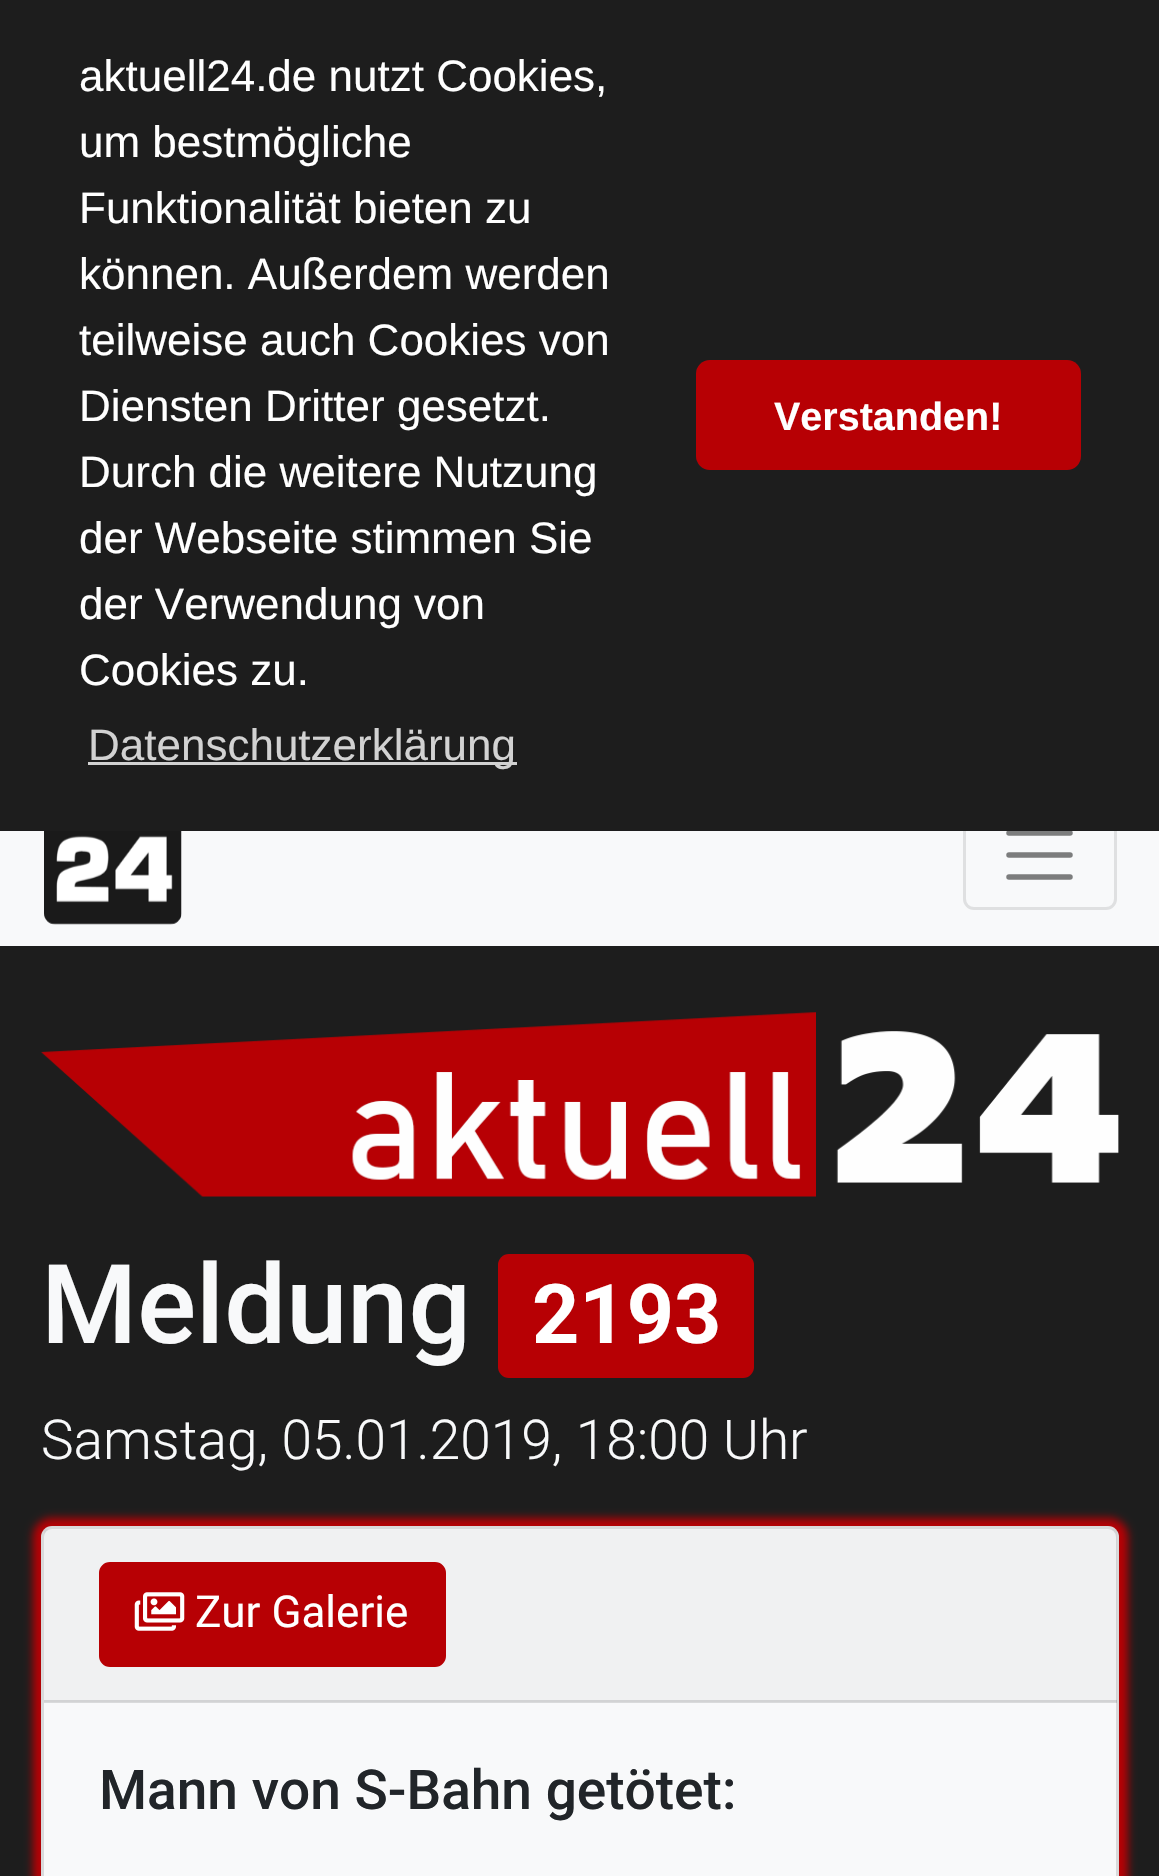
#include "include/core/SkBlurTypes.h"
#include "include/core/SkCanvas.h"
#include "include/core/SkData.h"
#include "include/core/SkFont.h"
#include "include/core/SkFontMgr.h"
#include "include/core/SkImage.h"
#include "include/core/SkMaskFilter.h"
#include "include/core/SkPaint.h"
#include "include/core/SkPathBuilder.h"
#include "include/core/SkTextBlob.h"
#include "include/effects/SkDashPathEffect.h"
#include "include/effects/SkGradientShader.h"
#include "include/utils/SkParsePath.h"

extern sk_sp<SkFontMgr> fontMgr;

static SkFont font(const char* family, int weight, float size, bool italic = false) {
    SkFontStyle style(weight, SkFontStyle::kNormal_Width,
        italic ? SkFontStyle::kItalic_Slant : SkFontStyle::kUpright_Slant);
    SkFont result(fontMgr->matchFamilyStyle(family, style), size);
    result.setSubpixel(true);
    return result;
}

static void drawLabel(SkCanvas* canvas, const char* s, float x, float y, const SkFont& font, SkColor color) {
    SkPaint ink(SkColor4f::FromColor(color));
    ink.setAntiAlias(true);
    canvas->drawString(s, x, y, font, ink);
}

static void fillRect(SkCanvas* canvas, float x, float y, float w, float h, SkColor color) {
    SkPaint ink(SkColor4f::FromColor(color));
    ink.setAntiAlias(true);
    canvas->drawRect(SkRect::MakeXYWH(x, y, w, h), ink);
}

static void fillRRect(SkCanvas* canvas, float x, float y, float w, float h, float radius, SkColor color) {
    SkPaint ink(SkColor4f::FromColor(color));
    ink.setAntiAlias(true);
    canvas->drawRoundRect(SkRect::MakeXYWH(x, y, w, h), radius, radius, ink);
}

static void drawPhoto(SkCanvas* canvas, const char* path, float x, float y, float w, float h) {
    auto image = SkImages::DeferredFromEncodedData(SkData::MakeFromFileName(path));
    canvas->drawImageRect(image, SkRect::MakeXYWH(x, y, w, h), SkSamplingOptions());
}

static SkPath parsePath(const char* data, bool evenOdd = false) {
    SkPath result = *SkParsePath::FromSVGString(data);
    if (evenOdd) result.setFillType(SkPathFillType::kEvenOdd);
    return result;
}

void draw(SkCanvas* canvas) {
    SkPaint paint;
    paint.setAntiAlias(true);
    canvas->clear(0xFF1D1D1D);
    fillRect(canvas, 0, 831, 1159, 115, 0xFFF8F9FA);
    paint.setStroke(true);
    paint.setStrokeWidth(3);
    paint.setColor(0xFFDFE0E1);
    canvas->drawRoundRect(SkRect::MakeXYWH(964.5f, 801.5f, 151, 107), 9.5f, 9.5f, paint);
    paint.setStrokeWidth(5.5f);
    paint.setStrokeCap(SkPaint::kRound_Cap);
    paint.setColor(0xFF7C7D7D);
    canvas->drawPath(parsePath("M1009 833H1070M1009 855H1070M1009 877H1070"), paint);
    fillRect(canvas, 963, 800, 154, 31, 0xFF1D1D1D);
    SkFont font1 = font("Liberation Sans", 400, 44);
    drawLabel(canvas, "aktuell24.de nutzt Cookies,", 79, 91, font1, 0xFFFFFFFF);
    drawLabel(canvas, "um bestmögliche", 79, 157, font1, 0xFFFFFFFF);
    drawLabel(canvas, "Funktionalität bieten zu", 79, 223, font1, 0xFFFFFFFF);
    drawLabel(canvas, "können. Außerdem werden", 79, 289, font1, 0xFFFFFFFF);
    drawLabel(canvas, "teilweise auch Cookies von", 79, 355, font1, 0xFFFFFFFF);
    drawLabel(canvas, "Diensten Dritter gesetzt.", 79, 421, font1, 0xFFFFFFFF);
    drawLabel(canvas, "Durch die weitere Nutzung", 79, 487, font1, 0xFFFFFFFF);
    drawLabel(canvas, "der Webseite stimmen Sie", 79, 553, font1, 0xFFFFFFFF);
    drawLabel(canvas, "der Verwendung von", 79, 619, font1, 0xFFFFFFFF);
    drawLabel(canvas, "Cookies zu.", 79, 685, font1, 0xFFFFFFFF);
    fillRect(canvas, 88, 762, 429, 3, 0xFFD2D2D2);
    drawLabel(canvas, "Datenschutzerklärung", 88, 760, font1, 0xFFD2D2D2);
    fillRRect(canvas, 696, 360, 385, 110, 14, 0xFFB70004);
    SkFont font2 = font("Liberation Sans", 700, 39.5f);
    drawLabel(canvas, "Verstanden!", 774, 430, font2, 0xFFFFFFFF);
    drawPhoto(canvas, "assets/img1.png", 44, 831, 138, 94);
    drawPhoto(canvas, "assets/img2.png", 41, 1012, 1078, 185);
    SkFont font3 = font("Roboto", 500, 110);
    drawLabel(canvas, "Meldung", 41, 1343, font3, 0xFFF8F9FA);
    fillRRect(canvas, 498, 1254, 256, 124, 11, 0xFFB70004);
    SkFont font4 = font("Roboto", 700, 82.5f);
    drawLabel(canvas, "2193", 532, 1343, font4, 0xFFFFFFFF);
    SkFont font5 = font("Roboto", 300, 55);
    drawLabel(canvas, "Samstag, 05.01.2019, 18:00 Uhr", 41, 1459, font5, 0xFFF8F9FA);
    paint.setStroke(false);
    paint.setColor(0xFFB70004);
    paint.setMaskFilter(SkMaskFilter::MakeBlur(kNormal_SkBlurStyle, 4));
    canvas->drawRoundRect(SkRect::MakeXYWH(33, 1518, 1095, 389), 19, 19, paint);
    paint.setMaskFilter(nullptr);
    fillRRect(canvas, 41, 1526, 1078, 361, 11, 0xFFF8F9FA);
    paint.setStroke(true);
    paint.setStrokeWidth(3);
    paint.setStrokeCap(SkPaint::kButt_Cap);
    paint.setColor(0x1F000000);
    canvas->drawRoundRect(SkRect::MakeXYWH(42.5f, 1527.5f, 1075, 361), 9.5f, 9.5f, paint);
    fillRect(canvas, 44, 1529, 1073, 173, 0x08000000);
    fillRect(canvas, 44, 1700, 1073, 3, 0x1F000000);
    paint.setStroke(false);
    paint.setColor(0xFFB70004);
    canvas->drawRoundRect(SkRect::MakeXYWH(100.5f, 1563.5f, 344, 102), 9.5f, 9.5f, paint);
    paint.setStroke(true);
    canvas->drawRoundRect(SkRect::MakeXYWH(100.5f, 1563.5f, 344, 102), 9.5f, 9.5f, paint);
    drawPhoto(canvas, "assets/img3.png", 134, 1592, 51, 39);
    SkFont font6 = font("Roboto", 400, 44);
    drawLabel(canvas, "Zur Galerie", 195, 1627, font6, 0xFFFFFFFF);
    SkFont font7 = font("Roboto", 500, 55);
    drawLabel(canvas, "Mann von S-Bahn getötet:", 99, 1809, font7, 0xFF212529);
}
